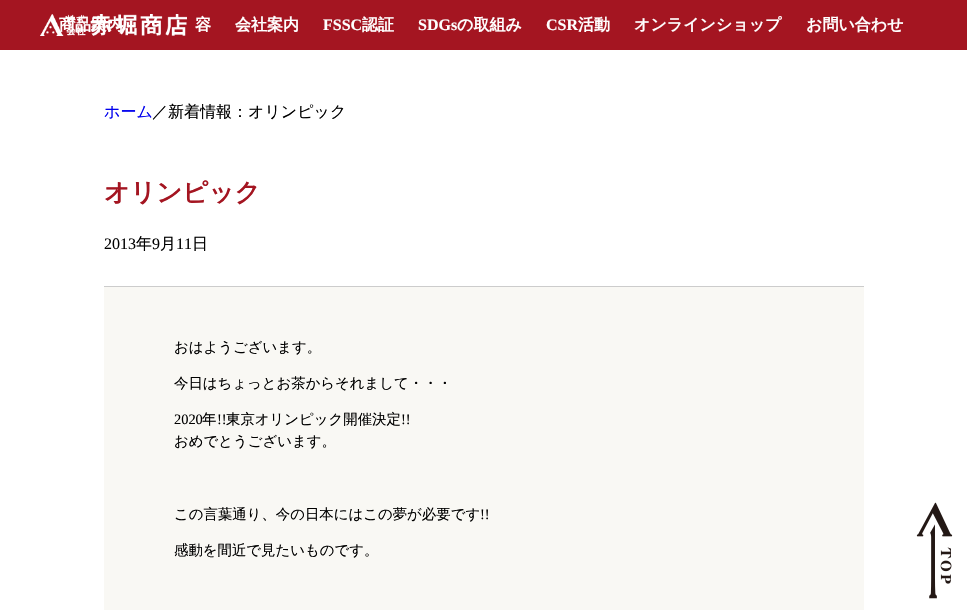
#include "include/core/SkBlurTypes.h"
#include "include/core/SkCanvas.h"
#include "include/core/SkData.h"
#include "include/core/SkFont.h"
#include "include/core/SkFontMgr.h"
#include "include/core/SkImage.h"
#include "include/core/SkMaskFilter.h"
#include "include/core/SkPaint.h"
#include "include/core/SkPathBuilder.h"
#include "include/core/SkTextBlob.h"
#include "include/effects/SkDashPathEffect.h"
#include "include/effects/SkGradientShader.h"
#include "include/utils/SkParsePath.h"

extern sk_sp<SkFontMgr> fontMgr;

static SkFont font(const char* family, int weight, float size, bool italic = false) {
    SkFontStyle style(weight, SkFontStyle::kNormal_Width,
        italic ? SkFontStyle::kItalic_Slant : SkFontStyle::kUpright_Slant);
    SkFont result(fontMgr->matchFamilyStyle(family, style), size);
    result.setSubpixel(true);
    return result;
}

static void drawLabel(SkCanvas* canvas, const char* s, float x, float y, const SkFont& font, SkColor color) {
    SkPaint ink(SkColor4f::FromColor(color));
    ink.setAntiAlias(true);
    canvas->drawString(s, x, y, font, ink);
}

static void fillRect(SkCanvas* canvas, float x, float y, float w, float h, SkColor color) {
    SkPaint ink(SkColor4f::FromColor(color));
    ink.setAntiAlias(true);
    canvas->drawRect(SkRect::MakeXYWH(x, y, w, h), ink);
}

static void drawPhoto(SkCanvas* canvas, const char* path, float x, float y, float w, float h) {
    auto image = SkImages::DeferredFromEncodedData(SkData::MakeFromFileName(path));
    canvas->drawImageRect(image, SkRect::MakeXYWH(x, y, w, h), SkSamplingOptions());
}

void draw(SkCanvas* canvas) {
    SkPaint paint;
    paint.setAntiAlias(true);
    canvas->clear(0xFFFFFFFF);
    fillRect(canvas, 0, 0, 967, 50, 0xFFA41521);
    SkFont font1 = font("WenQuanYi Zen Hei", 700, 16);
    drawLabel(canvas, "商品案内", 59, 30, font1, 0xFFFFFFFF);
    drawPhoto(canvas, "assets/img1.png", 40, 14, 147, 22);
    drawLabel(canvas, "容", 195, 30, font1, 0xFFFFFFFF);
    drawLabel(canvas, "会社案内", 235, 30, font1, 0xFFFFFFFF);
    SkFont font2 = font("Liberation Serif", 700, 16);
    drawLabel(canvas, "FSSC", 323, 30, font2, 0xFFFFFFFF);
    drawLabel(canvas, "認証", 362, 30, font1, 0xFFFFFFFF);
    drawLabel(canvas, "SDGs", 418, 30, font2, 0xFFFFFFFF);
    drawLabel(canvas, "の取組み", 457, 30, font1, 0xFFFFFFFF);
    drawLabel(canvas, "CSR", 546, 30, font2, 0xFFFFFFFF);
    drawLabel(canvas, "活動", 578, 30, font1, 0xFFFFFFFF);
    drawLabel(canvas, "オンラインショップ", 634, 30, font1, 0xFFFFFFFF);
    drawLabel(canvas, "お問い合わせ", 806, 30, font1, 0xFFFFFFFF);
    SkFont font3 = font("WenQuanYi Zen Hei", 500, 16);
    drawLabel(canvas, "ホーム", 104, 117, font3, 0xFF0000EE);
    drawLabel(canvas, "／新着情報：オリンピック", 152, 117, font3, 0xFF000000);
    SkFont font4 = font("WenQuanYi Zen Hei", 700, 25.5f);
    drawLabel(canvas, "オリンピック", 104, 201, font4, 0xFFA41521);
    SkFont font5 = font("Liberation Serif", 400, 16);
    drawLabel(canvas, "2013", 104, 249, font5, 0xFF000000);
    drawLabel(canvas, "年", 136, 249, font3, 0xFF000000);
    drawLabel(canvas, "9", 152, 249, font5, 0xFF000000);
    drawLabel(canvas, "月", 160, 249, font3, 0xFF000000);
    drawLabel(canvas, "11", 176, 249, font5, 0xFF000000);
    drawLabel(canvas, "日", 192, 249, font3, 0xFF000000);
    fillRect(canvas, 104, 287, 760, 323, 0xFFF9F8F4);
    fillRect(canvas, 104, 286, 760, 1, 0xFFCCCCCC);
    SkFont font6 = font("WenQuanYi Zen Hei", 500, 14.4f);
    drawLabel(canvas, "おはようございます。", 174, 352, font6, 0xFF000000);
    drawLabel(canvas, "今日はちょっとお茶からそれまして・・・", 174, 388, font6, 0xFF000000);
    SkFont font7 = font("Liberation Serif", 400, 14.4f);
    drawLabel(canvas, "2020", 174, 424, font7, 0xFF000000);
    drawLabel(canvas, "年", 202, 424, font6, 0xFF000000);
    drawLabel(canvas, "!!", 217, 424, font7, 0xFF000000);
    drawLabel(canvas, "東京オリンピック開催決定", 226, 424, font6, 0xFF000000);
    drawLabel(canvas, "!!", 401, 424, font7, 0xFF000000);
    drawLabel(canvas, "おめでとうございます。", 174, 446, font6, 0xFF000000);
    drawLabel(canvas, "この言葉通り、今の日本にはこの夢が必要です", 174, 519, font6, 0xFF000000);
    drawLabel(canvas, "!!", 480, 519, font7, 0xFF000000);
    drawLabel(canvas, "感動を間近で見たいものです。", 174, 555, font6, 0xFF000000);
    drawPhoto(canvas, "assets/img2.png", 916, 502, 37, 97);
}
